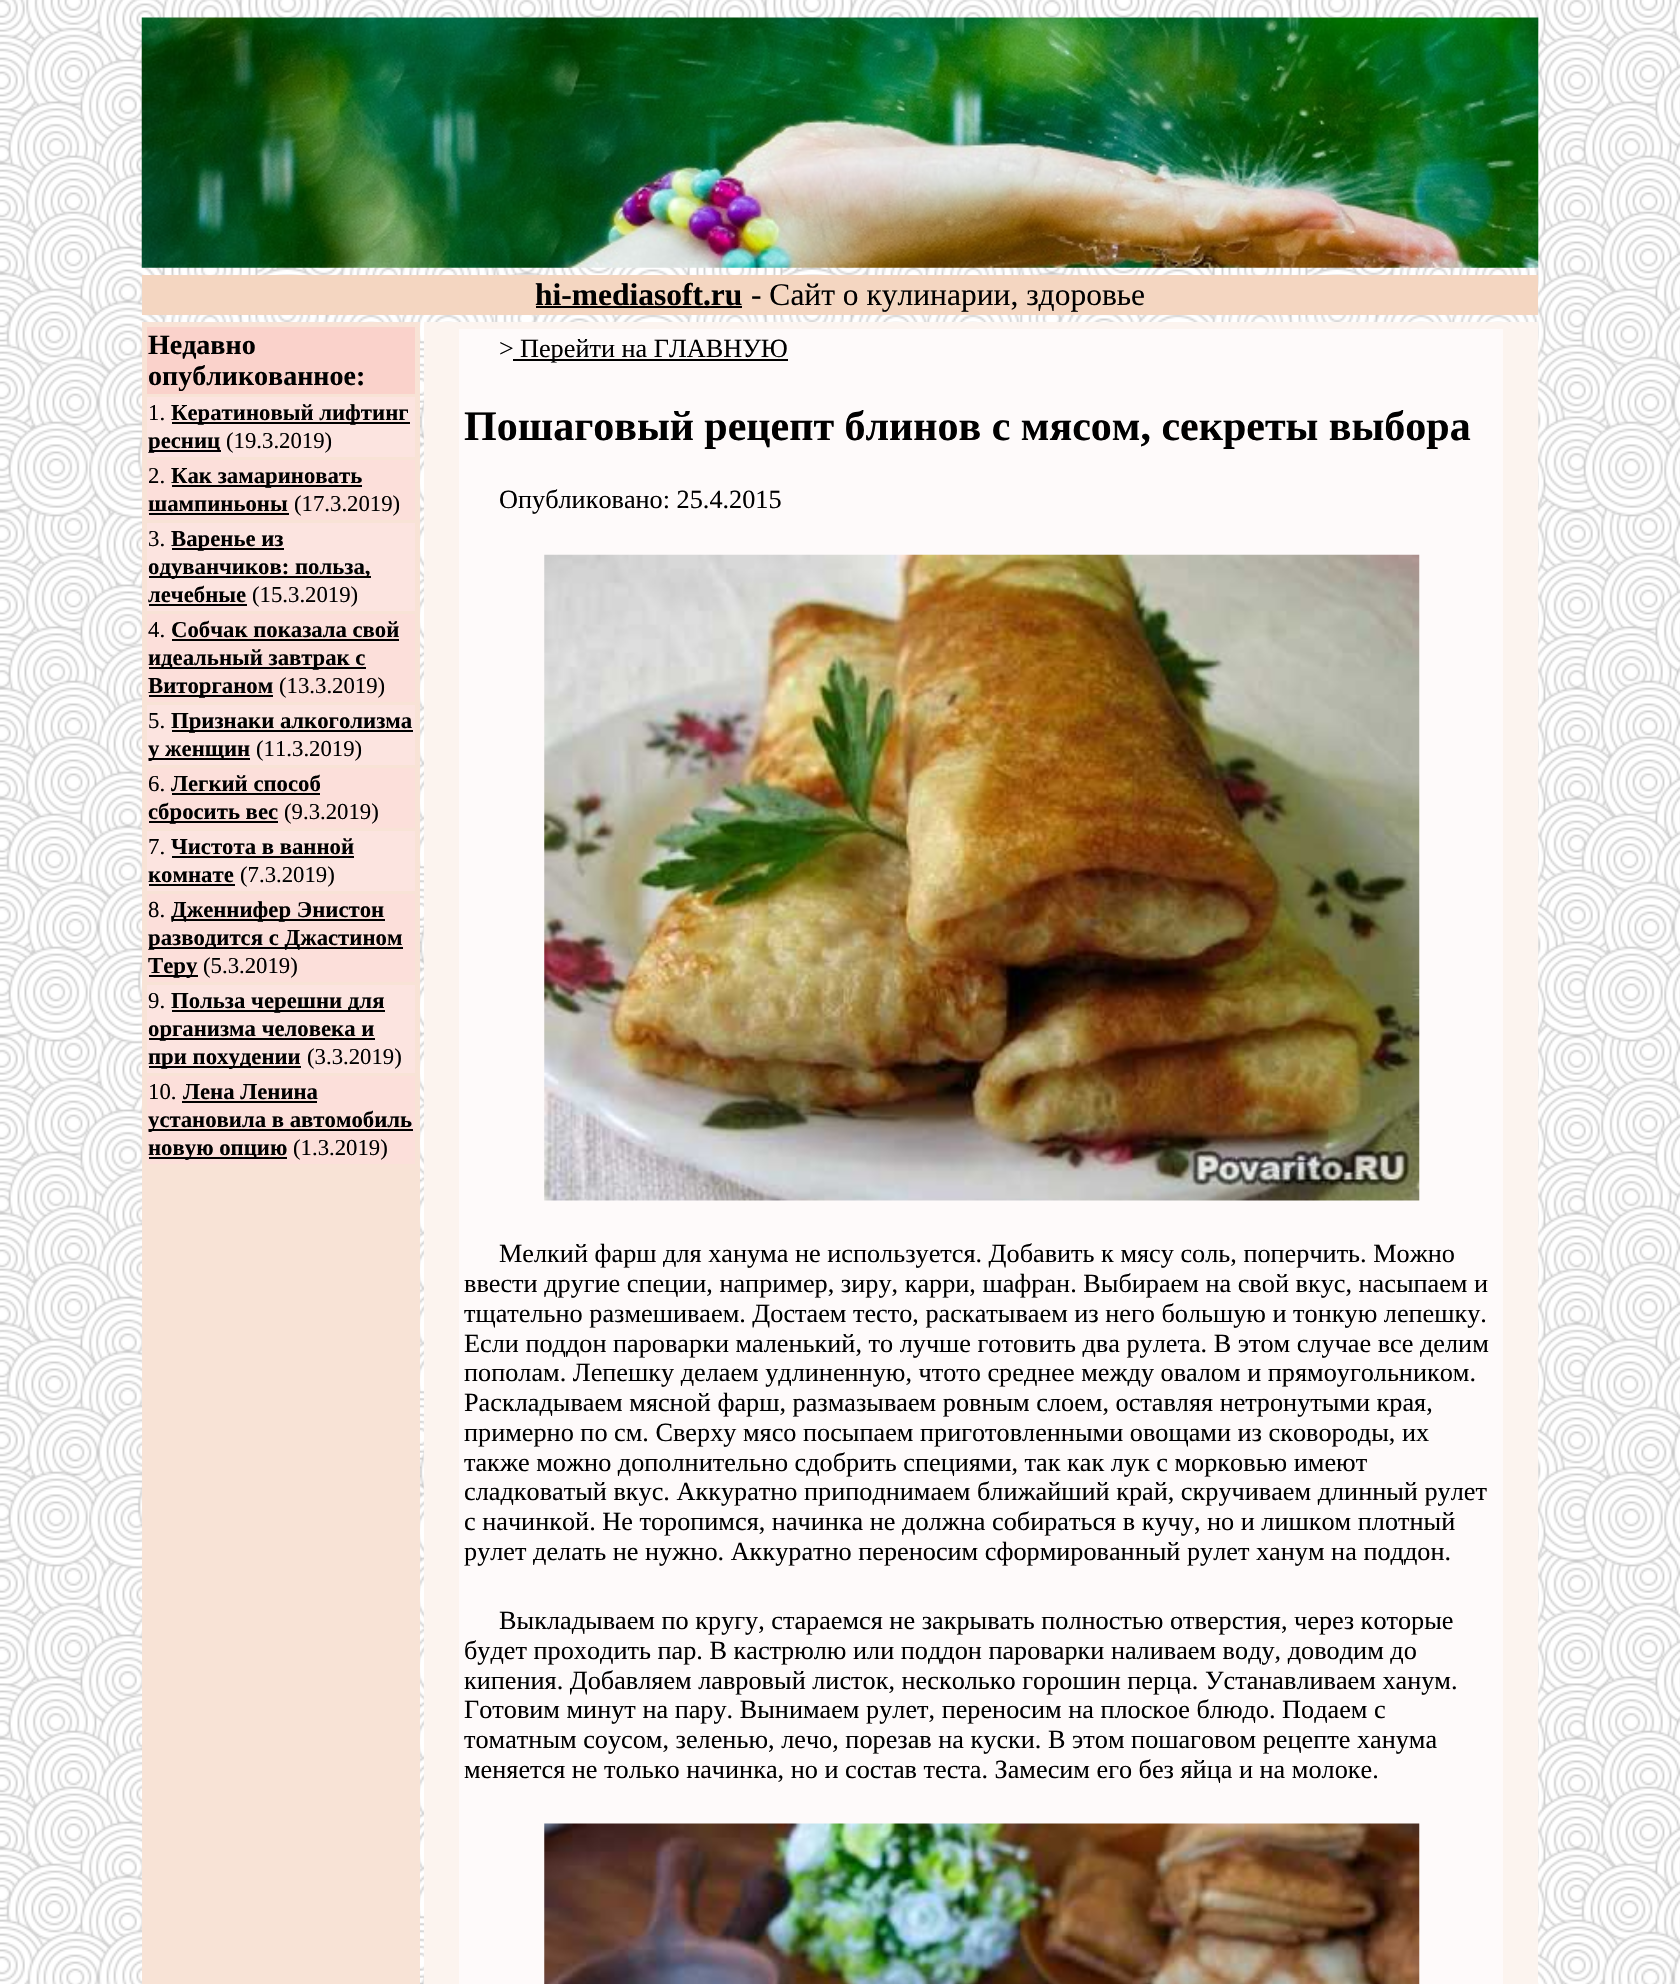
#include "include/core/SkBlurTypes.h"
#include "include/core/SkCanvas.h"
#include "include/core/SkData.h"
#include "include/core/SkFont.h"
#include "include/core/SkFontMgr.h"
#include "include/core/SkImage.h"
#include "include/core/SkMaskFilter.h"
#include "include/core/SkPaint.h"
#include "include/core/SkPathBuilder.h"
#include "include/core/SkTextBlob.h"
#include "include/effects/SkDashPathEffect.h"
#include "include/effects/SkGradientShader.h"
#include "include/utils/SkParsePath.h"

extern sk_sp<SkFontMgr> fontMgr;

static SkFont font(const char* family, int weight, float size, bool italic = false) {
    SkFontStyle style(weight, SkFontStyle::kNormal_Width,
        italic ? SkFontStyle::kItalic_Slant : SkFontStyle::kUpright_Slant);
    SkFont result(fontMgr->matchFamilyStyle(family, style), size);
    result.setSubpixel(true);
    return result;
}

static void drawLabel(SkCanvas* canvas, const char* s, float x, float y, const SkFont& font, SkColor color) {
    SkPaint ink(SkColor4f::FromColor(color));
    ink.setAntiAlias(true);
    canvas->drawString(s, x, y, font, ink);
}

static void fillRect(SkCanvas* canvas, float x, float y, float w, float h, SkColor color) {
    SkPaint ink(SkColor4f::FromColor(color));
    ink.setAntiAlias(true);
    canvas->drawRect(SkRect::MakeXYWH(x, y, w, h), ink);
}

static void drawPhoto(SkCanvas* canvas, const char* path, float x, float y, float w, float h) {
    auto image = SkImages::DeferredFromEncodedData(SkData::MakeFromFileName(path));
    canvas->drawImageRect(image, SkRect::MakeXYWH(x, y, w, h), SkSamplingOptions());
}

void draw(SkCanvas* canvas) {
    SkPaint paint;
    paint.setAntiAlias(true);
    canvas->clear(0xFFFFFFFF);
    drawPhoto(canvas, "assets/img1.png", 0, 0, 1680, 1984);
    drawPhoto(canvas, "assets/img2.png", 141, 17, 1398, 251);
    fillRect(canvas, 142, 275, 1396, 40, 0xFFF4D6C1);
    SkFont font1 = font("Liberation Serif", 700, 31.5f);
    drawLabel(canvas, "hi-mediasoft.ru", 535, 305, font1, 0xFF000000);
    fillRect(canvas, 536, 306, 206, 2, 0xFF000000);
    SkFont font2 = font("Liberation Serif", 400, 31.5f);
    drawLabel(canvas, "- Сайт о кулинарии, здоровье", 751, 305, font2, 0xFF000000);
    fillRect(canvas, 142, 322, 278, 1662, 0xFFF8E3D6);
    fillRect(canvas, 147, 327, 268, 67, 0xFFFAD2CB);
    SkFont font3 = font("Liberation Serif", 700, 28);
    drawLabel(canvas, "Недавно", 148, 354, font3, 0xFF000000);
    drawLabel(canvas, "опубликованное:", 148, 385, font3, 0xFF000000);
    fillRect(canvas, 147, 397, 268, 60, 0xFFFCE4E0);
    SkFont font4 = font("Liberation Serif", 400, 22.75f);
    drawLabel(canvas, "1.", 148, 420, font4, 0xFF000000);
    fillRect(canvas, 172, 422, 238, 2, 0xFF000000);
    SkFont font5 = font("Liberation Serif", 700, 22.75f);
    drawLabel(canvas, "Кератиновый лифтинг", 171, 420, font5, 0xFF000000);
    fillRect(canvas, 149, 450, 72, 2, 0xFF000000);
    drawLabel(canvas, "ресниц", 148, 448, font5, 0xFF000000);
    drawLabel(canvas, "(19.3.2019)", 226, 448, font4, 0xFF000000);
    fillRect(canvas, 147, 460, 268, 60, 0xFFFCDFDA);
    drawLabel(canvas, "2.", 148, 483, font4, 0xFF000000);
    fillRect(canvas, 172, 485, 190, 2, 0xFF000000);
    drawLabel(canvas, "Как замариновать", 171, 483, font5, 0xFF000000);
    drawLabel(canvas, "шампиньоны", 148, 511, font5, 0xFF000000);
    fillRect(canvas, 149, 513, 140, 2, 0xFF000000);
    drawLabel(canvas, "(17.3.2019)", 294, 511, font4, 0xFF000000);
    fillRect(canvas, 147, 523, 268, 88, 0xFFFCE4E0);
    drawLabel(canvas, "3.", 148, 546, font4, 0xFF000000);
    fillRect(canvas, 172, 548, 112, 2, 0xFF000000);
    drawLabel(canvas, "Варенье из", 171, 546, font5, 0xFF000000);
    fillRect(canvas, 149, 576, 222, 2, 0xFF000000);
    drawLabel(canvas, "одуванчиков: польза,", 148, 574, font5, 0xFF000000);
    drawLabel(canvas, "лечебные", 148, 602, font5, 0xFF000000);
    fillRect(canvas, 149, 604, 98, 2, 0xFF000000);
    drawLabel(canvas, "(15.3.2019)", 252, 602, font4, 0xFF000000);
    fillRect(canvas, 147, 614, 268, 88, 0xFFFCDFDA);
    drawLabel(canvas, "4.", 148, 637, font4, 0xFF000000);
    drawLabel(canvas, "Собчак показала свой", 171, 637, font5, 0xFF000000);
    fillRect(canvas, 172, 639, 227, 2, 0xFF000000);
    fillRect(canvas, 149, 667, 217, 2, 0xFF000000);
    drawLabel(canvas, "идеальный завтрак с", 148, 665, font5, 0xFF000000);
    fillRect(canvas, 149, 695, 124, 2, 0xFF000000);
    drawLabel(canvas, "Виторганом", 148, 693, font5, 0xFF000000);
    drawLabel(canvas, "(13.3.2019)", 279, 693, font4, 0xFF000000);
    fillRect(canvas, 147, 705, 268, 60, 0xFFFCE4E0);
    drawLabel(canvas, "5.", 148, 728, font4, 0xFF000000);
    fillRect(canvas, 172, 730, 241, 2, 0xFF000000);
    drawLabel(canvas, "Признаки алкоголизма", 171, 728, font5, 0xFF000000);
    fillRect(canvas, 149, 758, 101, 2, 0xFF000000);
    drawLabel(canvas, "у женщин", 148, 756, font5, 0xFF000000);
    drawLabel(canvas, "(11.3.2019)", 256, 756, font4, 0xFF000000);
    fillRect(canvas, 147, 768, 268, 60, 0xFFFCDFDA);
    drawLabel(canvas, "6.", 148, 791, font4, 0xFF000000);
    drawLabel(canvas, "Легкий способ", 171, 791, font5, 0xFF000000);
    fillRect(canvas, 172, 793, 148, 2, 0xFF000000);
    fillRect(canvas, 149, 821, 129, 2, 0xFF000000);
    drawLabel(canvas, "сбросить вес", 148, 819, font5, 0xFF000000);
    drawLabel(canvas, "(9.3.2019)", 284, 819, font4, 0xFF000000);
    fillRect(canvas, 147, 831, 268, 60, 0xFFFCE4E0);
    drawLabel(canvas, "7.", 148, 854, font4, 0xFF000000);
    drawLabel(canvas, "Чистота в ванной", 171, 854, font5, 0xFF000000);
    fillRect(canvas, 172, 856, 182, 2, 0xFF000000);
    drawLabel(canvas, "комнате", 148, 882, font5, 0xFF000000);
    fillRect(canvas, 149, 884, 86, 2, 0xFF000000);
    drawLabel(canvas, "(7.3.2019)", 240, 882, font4, 0xFF000000);
    fillRect(canvas, 147, 894, 268, 88, 0xFFFCDFDA);
    drawLabel(canvas, "8.", 148, 917, font4, 0xFF000000);
    fillRect(canvas, 172, 919, 213, 2, 0xFF000000);
    drawLabel(canvas, "Дженнифер Энистон", 171, 917, font5, 0xFF000000);
    fillRect(canvas, 149, 947, 254, 2, 0xFF000000);
    drawLabel(canvas, "разводится с Джастином", 148, 945, font5, 0xFF000000);
    fillRect(canvas, 149, 975, 49, 2, 0xFF000000);
    drawLabel(canvas, "Теру", 148, 973, font5, 0xFF000000);
    drawLabel(canvas, "(5.3.2019)", 203, 973, font4, 0xFF000000);
    fillRect(canvas, 147, 985, 268, 88, 0xFFFCE4E0);
    drawLabel(canvas, "9.", 148, 1008, font4, 0xFF000000);
    fillRect(canvas, 172, 1010, 213, 2, 0xFF000000);
    drawLabel(canvas, "Польза черешни для", 171, 1008, font5, 0xFF000000);
    fillRect(canvas, 149, 1038, 226, 2, 0xFF000000);
    drawLabel(canvas, "организма человека и", 148, 1036, font5, 0xFF000000);
    fillRect(canvas, 149, 1066, 152, 2, 0xFF000000);
    drawLabel(canvas, "при похудении", 148, 1064, font5, 0xFF000000);
    drawLabel(canvas, "(3.3.2019)", 307, 1064, font4, 0xFF000000);
    fillRect(canvas, 147, 1076, 268, 88, 0xFFFCDFDA);
    drawLabel(canvas, "10.", 148, 1099, font4, 0xFF000000);
    drawLabel(canvas, "Лена Ленина", 183, 1099, font5, 0xFF000000);
    fillRect(canvas, 182, 1101, 135, 2, 0xFF000000);
    fillRect(canvas, 149, 1129, 264, 2, 0xFF000000);
    drawLabel(canvas, "установила в автомобиль", 148, 1127, font5, 0xFF000000);
    fillRect(canvas, 149, 1157, 138, 2, 0xFF000000);
    drawLabel(canvas, "новую опцию", 148, 1155, font5, 0xFF000000);
    drawLabel(canvas, "(1.3.2019)", 293, 1155, font4, 0xFF000000);
    fillRect(canvas, 424, 322, 1114, 1662, 0xFFFCF4EF);
    fillRect(canvas, 459, 329, 1044, 1655, 0xFFFEFAFA);
    SkFont font6 = font("Liberation Serif", 400, 26.25f);
    drawLabel(canvas, ">", 499, 357, font6, 0xFF000000);
    fillRect(canvas, 513, 359, 275, 2, 0xFF000000);
    drawLabel(canvas, "Перейти на ГЛАВНУЮ", 520, 357, font6, 0xFF000000);
    SkFont font7 = font("Liberation Serif", 700, 42);
    drawLabel(canvas, "Пошаговый рецепт блинов с мясом, секреты выбора", 464, 440, font7, 0xFF000000);
    drawLabel(canvas, "Опубликовано: 25.4.2015", 499, 508, font6, 0xFF000000);
    drawPhoto(canvas, "assets/img3.png", 544, 554, 876, 647);
    drawLabel(canvas, "Мелкий фарш для ханума не используется. Добавить к мясу соль, поперчить. Можно", 499, 1262, font6, 0xFF000000);
    drawLabel(canvas, "ввести другие специи, например, зиру, карри, шафран. Выбираем на свой вкус, насыпаем и", 464, 1292, font6, 0xFF000000);
    drawLabel(canvas, "тщательно размешиваем. Достаем тесто, раскатываем из него большую и тонкую лепешку.", 464, 1322, font6, 0xFF000000);
    drawLabel(canvas, "Если поддон пароварки маленький, то лучше готовить два рулета. В этом случае все делим", 464, 1352, font6, 0xFF000000);
    drawLabel(canvas, "пополам. Лепешку делаем удлиненную, чтото среднее между овалом и прямоугольником.", 464, 1381, font6, 0xFF000000);
    drawLabel(canvas, "Раскладываем мясной фарш, размазываем ровным слоем, оставляя нетронутыми края,", 464, 1411, font6, 0xFF000000);
    drawLabel(canvas, "примерно по см. Сверху мясо посыпаем приготовленными овощами из сковороды, их", 464, 1441, font6, 0xFF000000);
    drawLabel(canvas, "также можно дополнительно сдобрить специями, так как лук с морковью имеют", 464, 1471, font6, 0xFF000000);
    drawLabel(canvas, "сладковатый вкус. Аккуратно приподнимаем ближайший край, скручиваем длинный рулет", 464, 1500, font6, 0xFF000000);
    drawLabel(canvas, "с начинкой. Не торопимся, начинка не должна собираться в кучу, но и лишком плотный", 464, 1530, font6, 0xFF000000);
    drawLabel(canvas, "рулет делать не нужно. Аккуратно переносим сформированный рулет ханум на поддон.", 464, 1560, font6, 0xFF000000);
    drawLabel(canvas, "Выкладываем по кругу, стараемся не закрывать полностью отверстия, через которые", 499, 1629, font6, 0xFF000000);
    drawLabel(canvas, "будет проходить пар. В кастрюлю или поддон пароварки наливаем воду, доводим до", 464, 1659, font6, 0xFF000000);
    drawLabel(canvas, "кипения. Добавляем лавровый листок, несколько горошин перца. Устанавливаем ханум.", 464, 1689, font6, 0xFF000000);
    drawLabel(canvas, "Готовим минут на пару. Вынимаем рулет, переносим на плоское блюдо. Подаем с", 464, 1718, font6, 0xFF000000);
    drawLabel(canvas, "томатным соусом, зеленью, лечо, порезав на куски. В этом пошаговом рецепте ханума", 464, 1748, font6, 0xFF000000);
    drawLabel(canvas, "меняется не только начинка, но и состав теста. Замесим его без яйца и на молоке.", 464, 1778, font6, 0xFF000000);
    drawPhoto(canvas, "assets/img4.png", 544, 1823, 876, 161);
}
